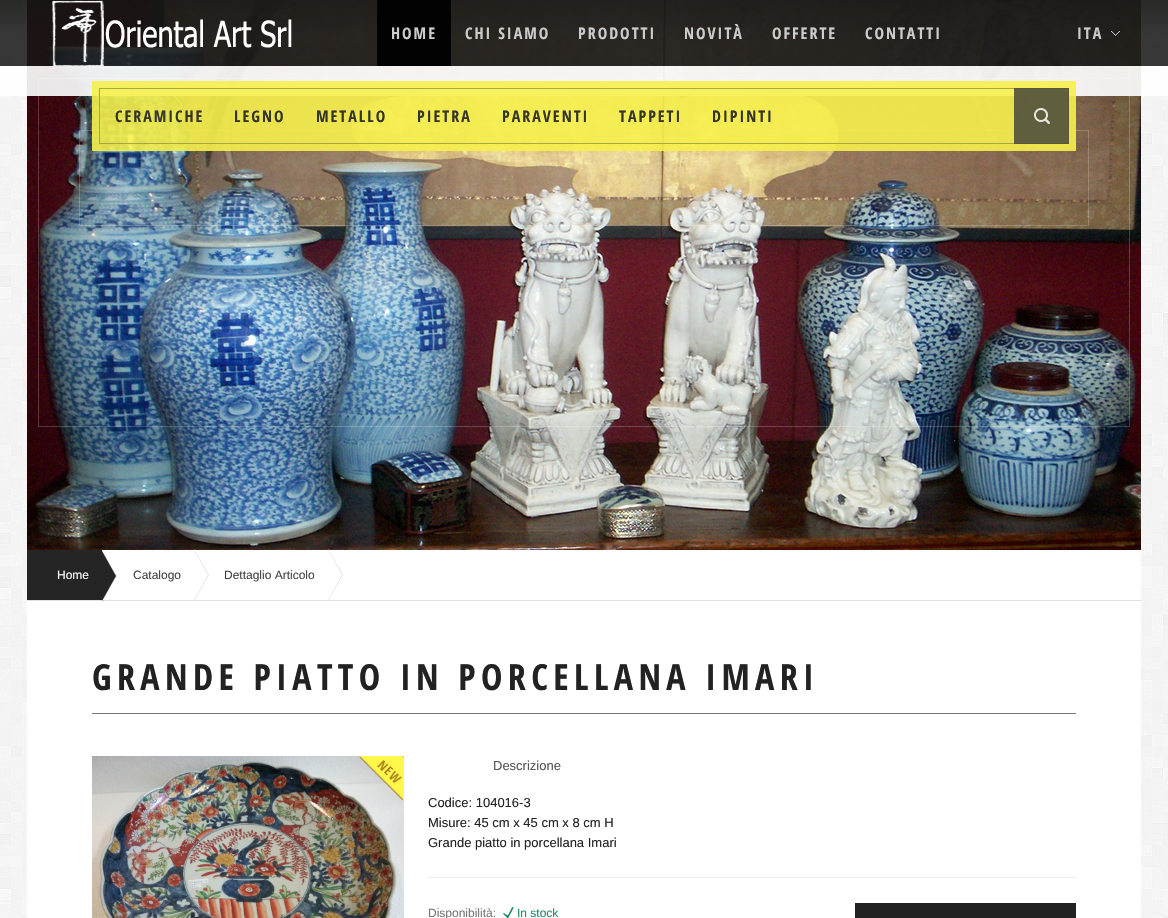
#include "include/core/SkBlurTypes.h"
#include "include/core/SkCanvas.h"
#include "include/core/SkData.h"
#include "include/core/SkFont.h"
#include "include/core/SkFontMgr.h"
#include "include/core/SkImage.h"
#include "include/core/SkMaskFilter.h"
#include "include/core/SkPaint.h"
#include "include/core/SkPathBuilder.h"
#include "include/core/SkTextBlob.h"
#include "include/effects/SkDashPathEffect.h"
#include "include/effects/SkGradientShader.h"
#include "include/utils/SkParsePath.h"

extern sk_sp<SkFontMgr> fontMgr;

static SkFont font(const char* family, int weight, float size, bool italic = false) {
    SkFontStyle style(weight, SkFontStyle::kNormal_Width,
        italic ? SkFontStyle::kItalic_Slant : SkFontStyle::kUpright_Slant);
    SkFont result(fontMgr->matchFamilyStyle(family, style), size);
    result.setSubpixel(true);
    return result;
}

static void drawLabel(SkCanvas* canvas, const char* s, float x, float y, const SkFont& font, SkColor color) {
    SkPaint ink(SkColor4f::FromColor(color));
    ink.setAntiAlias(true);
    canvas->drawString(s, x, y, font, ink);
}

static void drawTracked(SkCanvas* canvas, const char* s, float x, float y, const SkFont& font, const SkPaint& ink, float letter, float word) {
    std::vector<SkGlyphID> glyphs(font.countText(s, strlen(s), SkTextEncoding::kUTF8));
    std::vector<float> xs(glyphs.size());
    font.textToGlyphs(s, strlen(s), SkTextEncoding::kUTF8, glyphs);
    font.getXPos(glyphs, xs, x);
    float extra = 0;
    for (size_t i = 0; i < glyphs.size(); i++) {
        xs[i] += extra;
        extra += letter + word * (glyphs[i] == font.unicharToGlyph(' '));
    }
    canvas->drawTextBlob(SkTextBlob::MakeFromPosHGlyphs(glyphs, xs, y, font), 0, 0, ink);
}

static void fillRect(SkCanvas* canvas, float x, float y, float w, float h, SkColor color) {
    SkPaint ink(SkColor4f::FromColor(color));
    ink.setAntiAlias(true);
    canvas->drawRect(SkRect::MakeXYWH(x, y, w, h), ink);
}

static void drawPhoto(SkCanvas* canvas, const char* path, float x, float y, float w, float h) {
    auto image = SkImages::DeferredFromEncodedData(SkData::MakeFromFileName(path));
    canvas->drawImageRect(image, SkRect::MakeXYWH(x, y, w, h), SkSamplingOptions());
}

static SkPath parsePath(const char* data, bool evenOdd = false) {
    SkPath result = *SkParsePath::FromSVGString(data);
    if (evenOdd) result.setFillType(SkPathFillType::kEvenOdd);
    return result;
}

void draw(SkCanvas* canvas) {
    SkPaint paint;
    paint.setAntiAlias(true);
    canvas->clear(0xFFFFFFFF);
    drawPhoto(canvas, "assets/img1.png", 0, 0, 1168, 918);
    drawPhoto(canvas, "assets/img2.png", 27, 0, 1114, 550);
    paint.setStroke(true);
    paint.setStrokeWidth(1);
    paint.setColor(0x33FFFFFF);
    canvas->drawRect(SkRect::MakeXYWH(38.5f, 78.5f, 1091, 348), paint);
    canvas->drawRect(SkRect::MakeXYWH(79.5f, 130.5f, 1009, 95), paint);
    paint.setStroke(false);
    {
        const SkColor colors[] = {0xE8151514, 0xD9151515, 0xD9151515};
        const float stops[] = {0, 0.52f, 1};
        const SkPoint ends[] = {{584, 0}, {584, 66}};
        paint.setShader(SkGradientShader::MakeLinear(ends, colors, stops, 3, SkTileMode::kClamp));
        paint.setAlpha(255);
    }
    canvas->drawRect(SkRect::MakeXYWH(0, 0, 1168, 66), paint);
    drawPhoto(canvas, "assets/img3.png", 52, 0, 240, 66);
    fillRect(canvas, 377, 0, 74, 66, 0xFF020202);
    SkFont font1 = font("Open Sans Condensed", 700, 16);
    paint.setShader(nullptr);
    paint.setColor(0xFFCCCCCC);
    drawTracked(canvas, "HOME", 391, 39, font1, paint, 2, 0);
    drawTracked(canvas, "CHI SIAMO", 465, 39, font1, paint, 2, 0);
    drawTracked(canvas, "PRODOTTI", 578, 39, font1, paint, 2, 0);
    drawTracked(canvas, "NOVITÀ", 684, 39, font1, paint, 2, 0);
    drawTracked(canvas, "OFFERTE", 772, 39, font1, paint, 2, 0);
    drawTracked(canvas, "CONTATTI", 865, 39, font1, paint, 2, 0);
    drawTracked(canvas, "ITA", 1077, 39, font1, paint, 2, 0);
    drawPhoto(canvas, "assets/img4.png", 1111, 31, 9, 5);
    fillRect(canvas, 0, 66, 1168, 30, 0xE6FFFFFF);
    fillRect(canvas, 92, 81, 984, 70, 0xE6F5EF4B);
    paint.setStroke(true);
    paint.setColor(0xE6A29F43);
    canvas->drawRect(SkRect::MakeXYWH(99.5f, 88.5f, 969, 55), paint);
    paint.setStroke(false);
    paint.setColor(0xFF353527);
    drawTracked(canvas, "CERAMICHE", 115, 122, font1, paint, 2, 0);
    drawTracked(canvas, "LEGNO", 234, 122, font1, paint, 2, 0);
    drawTracked(canvas, "METALLO", 316, 122, font1, paint, 2, 0);
    drawTracked(canvas, "PIETRA", 417, 122, font1, paint, 2, 0);
    drawTracked(canvas, "PARAVENTI", 502, 122, font1, paint, 2, 0);
    drawTracked(canvas, "TAPPETI", 619, 122, font1, paint, 2, 0);
    drawTracked(canvas, "DIPINTI", 712, 122, font1, paint, 2, 0);
    fillRect(canvas, 1014, 88, 55, 56, 0xE6504F3B);
    drawPhoto(canvas, "assets/img5.png", 1034, 108, 16, 16);
    fillRect(canvas, 102, 550, 1039, 50, 0xFFFFFFFF);
    fillRect(canvas, 27, 600, 1114, 1, 0xFFE1E1E1);
    fillRect(canvas, 27, 550, 75, 50, 0xFF252525);
    paint.setColor(0xFFE1E1E1);
    canvas->drawPath(parsePath("M102 602V550L117 576Z"), paint);
    SkFont font2 = font("Liberation Sans", 400, 12);
    drawLabel(canvas, "Home", 57, 579, font2, 0xFFFAFAFA);
    paint.setColor(0xFF252525);
    canvas->drawPath(parsePath("M102 601V551L116 576Z"), paint);
    paint.setColor(0xFFE1E1E1);
    canvas->drawPath(parsePath("M194 601V549L209 575Z"), paint);
    drawLabel(canvas, "Catalogo", 133, 579, font2, 0xFF444444);
    paint.setColor(0xFFFFFFFF);
    canvas->drawPath(parsePath("M194 600V550L208 575Z"), paint);
    paint.setColor(0xFFE1E1E1);
    canvas->drawPath(parsePath("M328 601V549L343 575Z"), paint);
    drawLabel(canvas, "Dettaglio Articolo", 224, 579, font2, 0xFF444444);
    paint.setColor(0xFFFFFFFF);
    canvas->drawPath(parsePath("M328 600V550L342 575Z"), paint);
    fillRect(canvas, 27, 601, 1114, 317, 0xFFFFFFFF);
    fillRect(canvas, 92, 713, 984, 1, 0xFF777777);
    SkFont font3 = font("Open Sans Condensed", 700, 36);
    paint.setColor(0xFF222222);
    drawTracked(canvas, "GRANDE PIATTO IN PORCELLANA IMARI", 92, 690, font3, paint, 5.4f, 0);
    drawPhoto(canvas, "assets/img6.png", 92, 756, 312, 162);
    drawPhoto(canvas, "assets/img7.png", 359, 756, 45, 45);
    SkFont font4 = font("Liberation Sans", 400, 13);
    drawLabel(canvas, "Descrizione", 493, 770, font4, 0xFF555555);
    drawLabel(canvas, "Codice: 104016-3", 428, 807, font4, 0xFF222222);
    drawLabel(canvas, "Misure: 45 cm x 45 cm x 8 cm H", 428, 827, font4, 0xFF222222);
    drawLabel(canvas, "Grande piatto in porcellana Imari", 428, 847, font4, 0xFF222222);
    fillRect(canvas, 428, 877, 648, 1, 0xFFEEEEEE);
    drawLabel(canvas, "Disponibilità:", 428, 917, font2, 0xFF777777);
    drawPhoto(canvas, "assets/img8.png", 503, 907, 11, 11);
    drawLabel(canvas, "In stock", 517, 917, font2, 0xFF218966);
    fillRect(canvas, 855, 903, 221, 15, 0xFF222222);
}
